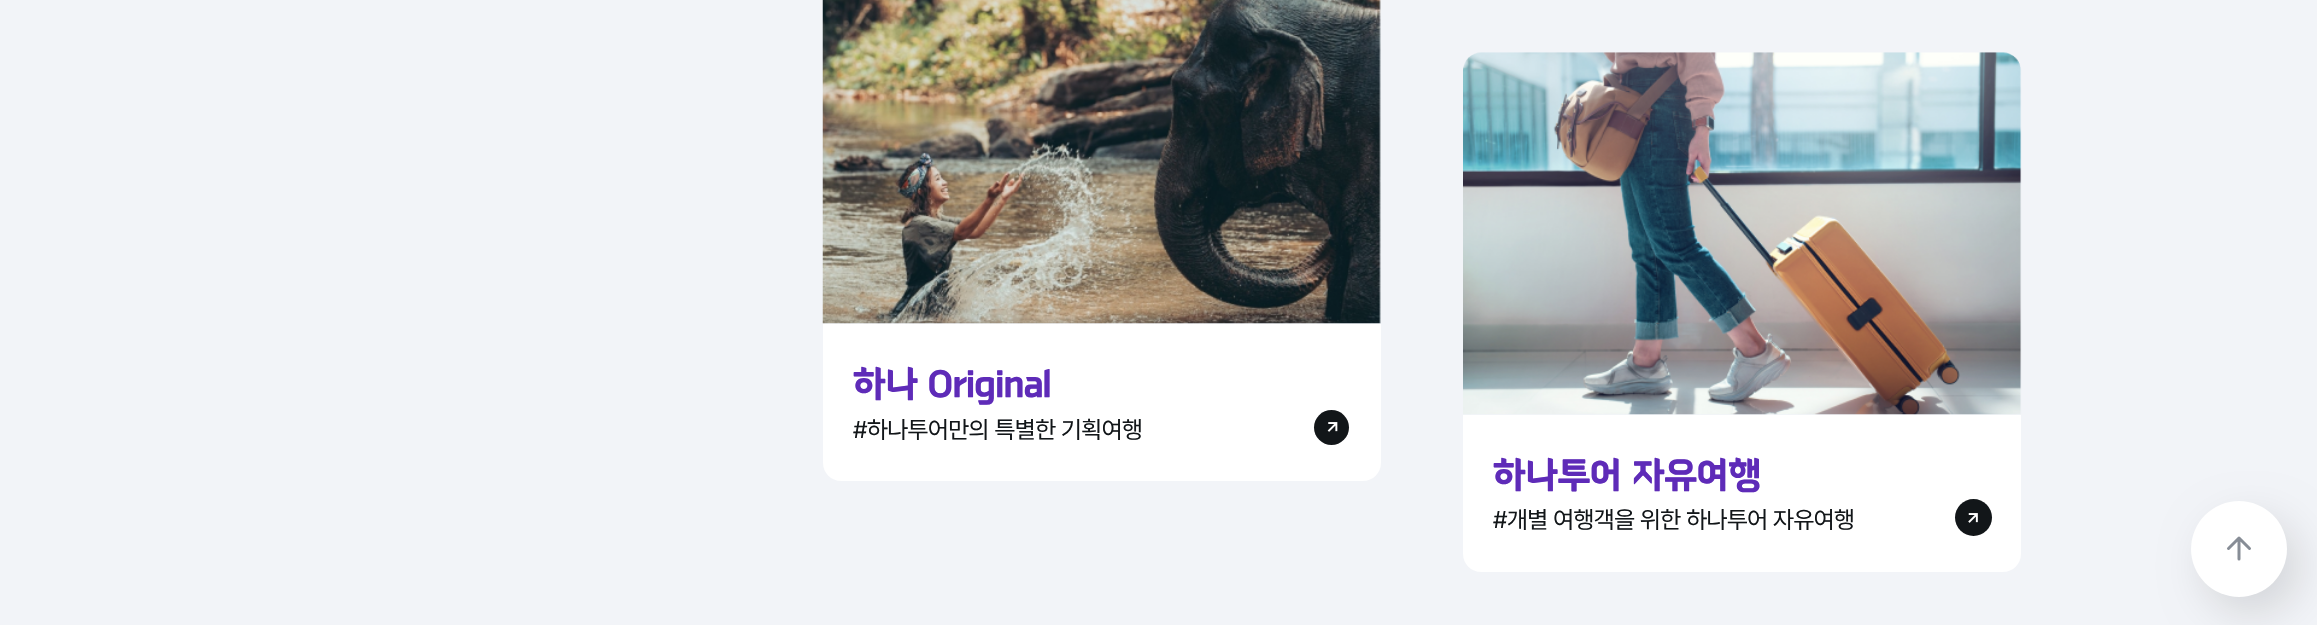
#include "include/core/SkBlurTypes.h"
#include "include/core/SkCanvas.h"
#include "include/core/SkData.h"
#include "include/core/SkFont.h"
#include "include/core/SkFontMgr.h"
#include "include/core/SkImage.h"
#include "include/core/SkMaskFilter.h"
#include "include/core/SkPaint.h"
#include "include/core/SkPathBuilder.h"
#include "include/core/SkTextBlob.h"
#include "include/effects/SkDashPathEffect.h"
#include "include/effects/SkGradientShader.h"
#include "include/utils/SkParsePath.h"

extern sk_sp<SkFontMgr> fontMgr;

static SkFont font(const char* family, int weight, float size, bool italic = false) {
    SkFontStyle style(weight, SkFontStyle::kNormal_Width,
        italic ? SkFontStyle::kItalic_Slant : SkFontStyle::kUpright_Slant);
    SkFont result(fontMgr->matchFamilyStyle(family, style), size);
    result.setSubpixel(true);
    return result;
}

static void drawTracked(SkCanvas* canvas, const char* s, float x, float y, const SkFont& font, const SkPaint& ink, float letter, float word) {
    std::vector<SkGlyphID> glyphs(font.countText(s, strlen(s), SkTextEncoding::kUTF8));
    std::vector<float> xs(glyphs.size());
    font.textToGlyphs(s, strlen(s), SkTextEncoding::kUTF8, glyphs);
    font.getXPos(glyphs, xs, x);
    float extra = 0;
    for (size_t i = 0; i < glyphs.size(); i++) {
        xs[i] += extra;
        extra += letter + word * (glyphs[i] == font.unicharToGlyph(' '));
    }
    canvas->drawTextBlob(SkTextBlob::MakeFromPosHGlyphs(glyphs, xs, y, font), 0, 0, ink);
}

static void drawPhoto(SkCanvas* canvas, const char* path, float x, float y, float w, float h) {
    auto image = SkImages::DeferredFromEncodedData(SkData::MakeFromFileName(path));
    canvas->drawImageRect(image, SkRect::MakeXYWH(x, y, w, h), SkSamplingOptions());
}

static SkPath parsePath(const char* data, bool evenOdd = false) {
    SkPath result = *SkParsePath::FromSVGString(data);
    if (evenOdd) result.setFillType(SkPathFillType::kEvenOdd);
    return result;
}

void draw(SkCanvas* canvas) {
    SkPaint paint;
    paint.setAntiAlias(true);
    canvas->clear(0xFFF2F4F8);
    drawPhoto(canvas, "assets/img1.png", 822, 0, 559, 324);
    paint.setColor(0xFFFFFFFF);
    canvas->drawPath(parsePath("M823 324H1381V463C1381 473 1373 481 1363 481H841C831 481 823 473 823 463Z"), paint);
    SkFont font1 = font("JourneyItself", 700, 36.25f);
    paint.setColor(0xFF5E2BB8);
    drawTracked(canvas, "하나 Original", 853, 397, font1, paint, -0.75f, 0);
    SkFont font2 = font("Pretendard", 400, 24.1f);
    paint.setColor(0xFF121619);
    drawTracked(canvas, "#하나투어만의 특별한 기획여행", 853, 438, font2, paint, -0.5f, 0);
    canvas->drawCircle(1331.5f, 427.5f, 17.5f, paint);
    drawPhoto(canvas, "assets/img2.png", 1327, 422, 11, 10);
    drawPhoto(canvas, "assets/img3.png", 1463, 52, 559, 363);
    paint.setColor(0xFFFFFFFF);
    canvas->drawPath(parsePath("M1463 415H2021V554C2021 564 2013 572 2003 572H1481C1471 572 1463 564 1463 554Z"), paint);
    paint.setColor(0xFF5E2BB8);
    drawTracked(canvas, "하나투어 자유여행", 1493, 488, font1, paint, -0.75f, 0);
    paint.setColor(0xFF121619);
    drawTracked(canvas, "#개별 여행객을 위한 하나투어 자유여행", 1493, 528, font2, paint, -0.5f, 0);
    canvas->drawCircle(1973.5f, 517.5f, 18.5f, paint);
    drawPhoto(canvas, "assets/img4.png", 1968, 513, 10, 10);
    paint.setColor(0x1F000000);
    paint.setMaskFilter(SkMaskFilter::MakeBlur(kNormal_SkBlurStyle, 21));
    canvas->drawRoundRect(SkRect::MakeXYWH(2203, 518, 97, 96), 48, 48, paint);
    paint.setMaskFilter(nullptr);
    paint.setColor(0xFFFFFFFF);
    canvas->drawCircle(2239, 549, 48, paint);
    paint.setStroke(true);
    paint.setStrokeWidth(3);
    paint.setStrokeCap(SkPaint::kRound_Cap);
    paint.setStrokeJoin(SkPaint::kRound_Join);
    paint.setColor(0xFF878D96);
    canvas->drawPath(parsePath("M2239 559V538M2239 538L2228.5 548.5M2239 538L2249.5 548.5"), paint);
}
